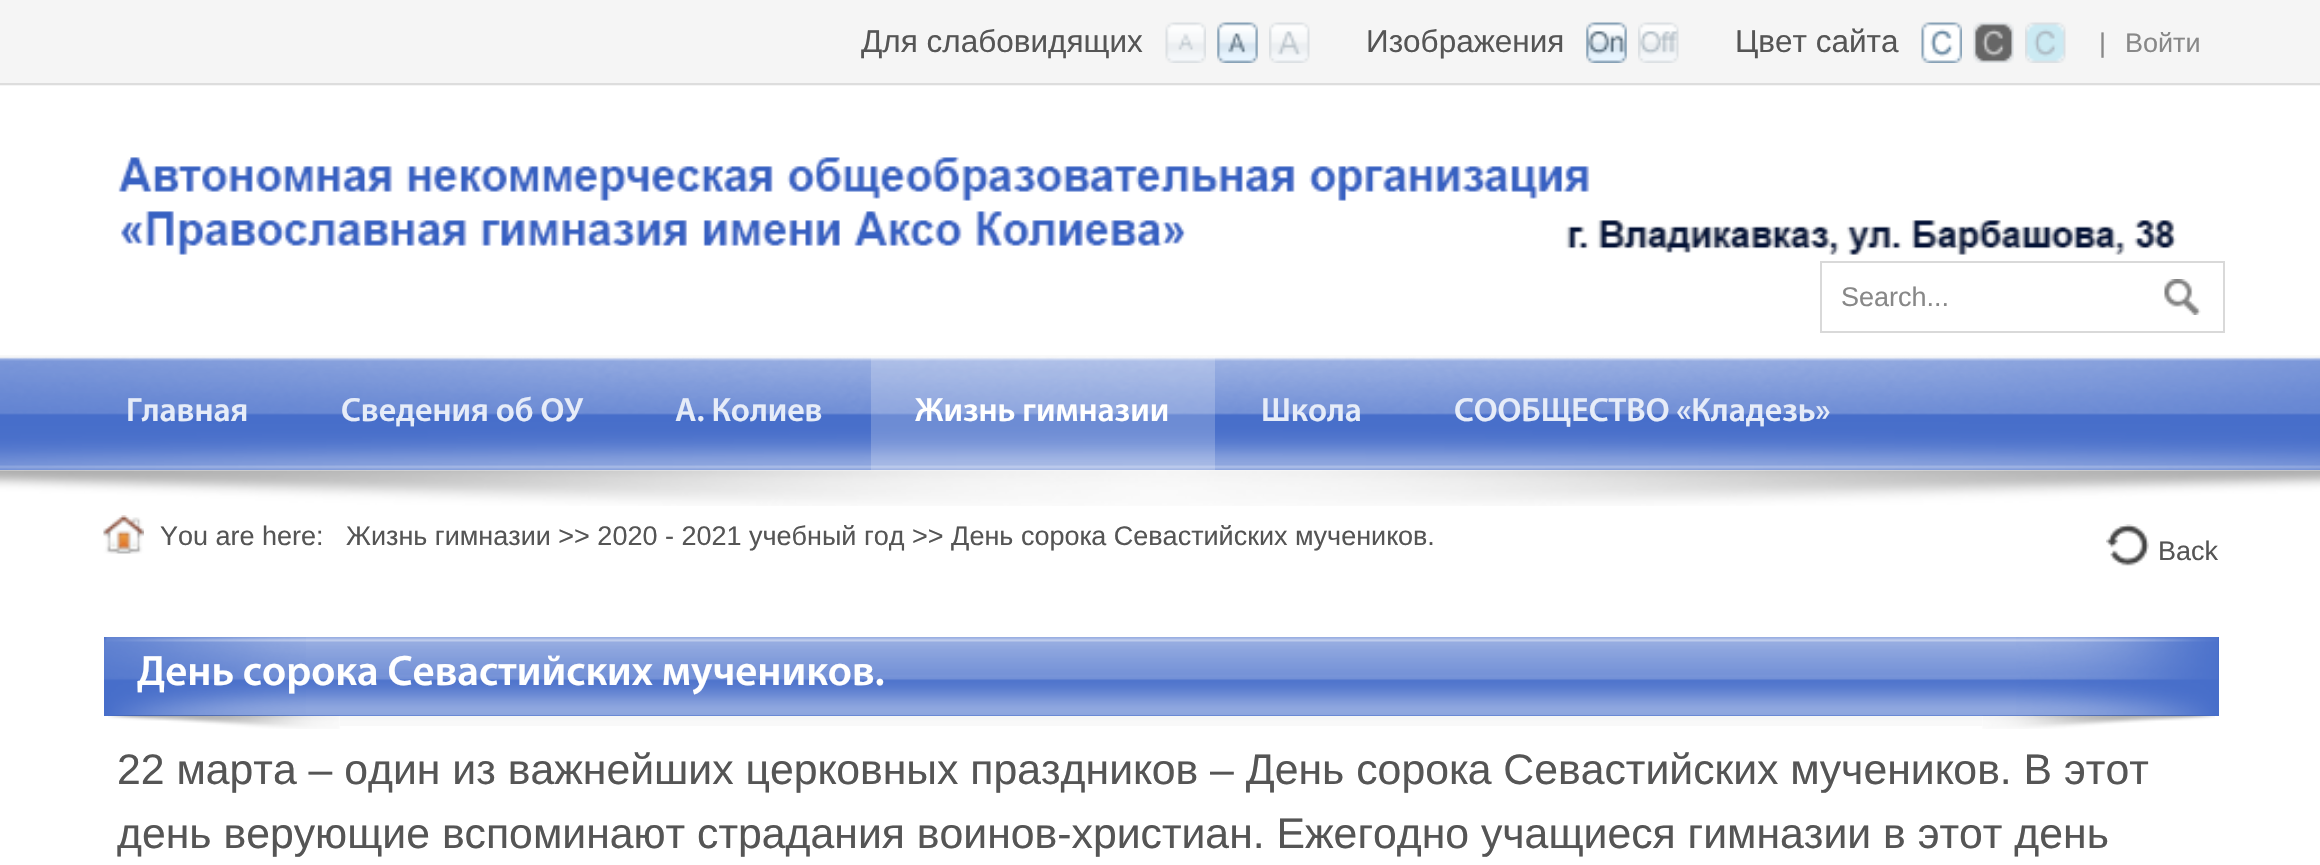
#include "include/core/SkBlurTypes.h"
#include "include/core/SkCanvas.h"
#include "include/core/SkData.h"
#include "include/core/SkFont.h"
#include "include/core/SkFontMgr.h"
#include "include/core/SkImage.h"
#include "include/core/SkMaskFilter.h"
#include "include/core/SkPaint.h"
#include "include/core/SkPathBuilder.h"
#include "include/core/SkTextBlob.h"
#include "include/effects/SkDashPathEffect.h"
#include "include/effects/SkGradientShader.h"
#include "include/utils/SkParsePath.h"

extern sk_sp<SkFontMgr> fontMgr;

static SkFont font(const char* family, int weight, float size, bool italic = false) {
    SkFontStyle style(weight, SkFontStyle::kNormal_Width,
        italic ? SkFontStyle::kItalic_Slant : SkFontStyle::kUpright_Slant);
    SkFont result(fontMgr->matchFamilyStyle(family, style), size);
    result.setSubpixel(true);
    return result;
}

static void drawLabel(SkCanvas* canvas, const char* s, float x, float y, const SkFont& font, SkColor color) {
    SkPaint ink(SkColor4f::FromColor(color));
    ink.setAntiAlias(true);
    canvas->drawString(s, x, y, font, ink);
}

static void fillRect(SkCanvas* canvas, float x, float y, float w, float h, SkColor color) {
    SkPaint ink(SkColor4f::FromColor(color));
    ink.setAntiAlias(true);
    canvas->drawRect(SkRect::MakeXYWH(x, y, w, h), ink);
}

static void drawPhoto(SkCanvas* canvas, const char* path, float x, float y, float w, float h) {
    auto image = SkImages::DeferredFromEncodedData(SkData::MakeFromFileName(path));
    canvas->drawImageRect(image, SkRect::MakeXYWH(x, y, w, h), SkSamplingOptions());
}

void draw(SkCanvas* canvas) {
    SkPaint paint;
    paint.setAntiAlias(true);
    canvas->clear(0xFFFFFFFF);
    fillRect(canvas, 0, 0, 2320, 86, 0xFFF5F5F5);
    fillRect(canvas, 0, 83, 2320, 2, 0xFFDDDDDD);
    SkFont font1 = font("Liberation Sans", 400, 31.5f);
    drawLabel(canvas, "Для слабовидящих", 861, 52, font1, 0xFF555555);
    drawPhoto(canvas, "assets/img1.png", 1165, 22, 41, 41);
    drawPhoto(canvas, "assets/img2.png", 1217, 22, 41, 41);
    drawPhoto(canvas, "assets/img3.png", 1269, 22, 41, 41);
    drawLabel(canvas, "Изображения", 1366, 52, font1, 0xFF555555);
    drawPhoto(canvas, "assets/img4.png", 1586, 22, 41, 41);
    drawPhoto(canvas, "assets/img5.png", 1638, 22, 41, 41);
    drawLabel(canvas, "Цвет сайта", 1735, 52, font1, 0xFF555555);
    drawPhoto(canvas, "assets/img6.png", 1921, 22, 41, 41);
    drawPhoto(canvas, "assets/img7.png", 1973, 22, 41, 41);
    drawPhoto(canvas, "assets/img8.png", 2025, 22, 41, 41);
    SkFont font2 = font("Liberation Sans", 400, 27);
    drawLabel(canvas, "|", 2099, 52, font2, 0xFF888888);
    drawLabel(canvas, "Войти", 2125, 52, font2, 0xFF888888);
    drawPhoto(canvas, "assets/img9.png", 118, 157, 2059, 98);
    paint.setStroke(true);
    paint.setStrokeWidth(2);
    paint.setColor(0xFFD9D9D9);
    canvas->drawRect(SkRect::MakeXYWH(1821, 262, 403, 70), paint);
    drawLabel(canvas, "Search...", 1841, 306, font2, 0xFF888888);
    drawPhoto(canvas, "assets/img10.png", 2164, 279, 37, 36);
    fillRect(canvas, 0, 357, 2320, 113, 0xFF476ECA);
    drawPhoto(canvas, "assets/img12.png", 0, 470, 2320, 36);
    drawPhoto(canvas, "assets/img11.png", 0, 355, 2320, 116);
    SkFont font3 = font("Myriad", 600, 33.75f);
    drawLabel(canvas, "Главная", 126, 421, font3, 0xFFE6ECF8);
    drawLabel(canvas, "Сведения об ОУ", 341, 421, font3, 0xFFE6ECF8);
    drawLabel(canvas, "А. Колиев", 675, 421, font3, 0xFFE6ECF8);
    fillRect(canvas, 871, 357, 344, 113, 0x33FFFFFF);
    drawLabel(canvas, "Жизнь гимназии", 915, 421, font3, 0xFFFFFFFF);
    drawLabel(canvas, "Школа", 1261, 421, font3, 0xFFE6ECF8);
    drawLabel(canvas, "СООБЩЕСТВО «Кладезь»", 1454, 421, font3, 0xFFE6ECF8);
    drawPhoto(canvas, "assets/img13.png", 103, 515, 41, 39);
    drawLabel(canvas, "You are here:", 160, 545, font2, 0xFF555555);
    drawLabel(canvas, "Жизнь гимназии >> 2020 - 2021 учебный год >> День сорока Севастийских мучеников.", 346, 545, font2, 0xFF555555);
    drawPhoto(canvas, "assets/img14.png", 2106, 524, 43, 42);
    drawLabel(canvas, "Back", 2158, 560, font2, 0xFF555555);
    fillRect(canvas, 104, 637, 2115, 79, 0xFF476ECA);
    drawPhoto(canvas, "assets/img15.png", 104, 637, 202, 79);
    drawPhoto(canvas, "assets/img16.png", 2016, 637, 202, 79);
    drawPhoto(canvas, "assets/img17.png", 306, 637, 1710, 79);
    SkFont font4 = font("Myriad", 600, 42.75f);
    drawLabel(canvas, "День сорока Севастийских мучеников.", 137, 685, font4, 0xFFFFFFFF);
    drawPhoto(canvas, "assets/img18.png", 108, 715, 232, 14);
    drawPhoto(canvas, "assets/img19.png", 1982, 715, 233, 14);
    drawPhoto(canvas, "assets/img20.png", 340, 716, 1642, 10);
    SkFont font5 = font("Liberation Sans", 400, 42.75f);
    drawLabel(canvas, "22 марта – один из важнейших церковных праздников – День сорока Севастийских мучеников. В этот", 117, 784, font5, 0xFF555555);
    drawLabel(canvas, "день верующие вспоминают страдания воинов-христиан. Ежегодно учащиеся гимназии в этот день", 117, 848, font5, 0xFF555555);
}
